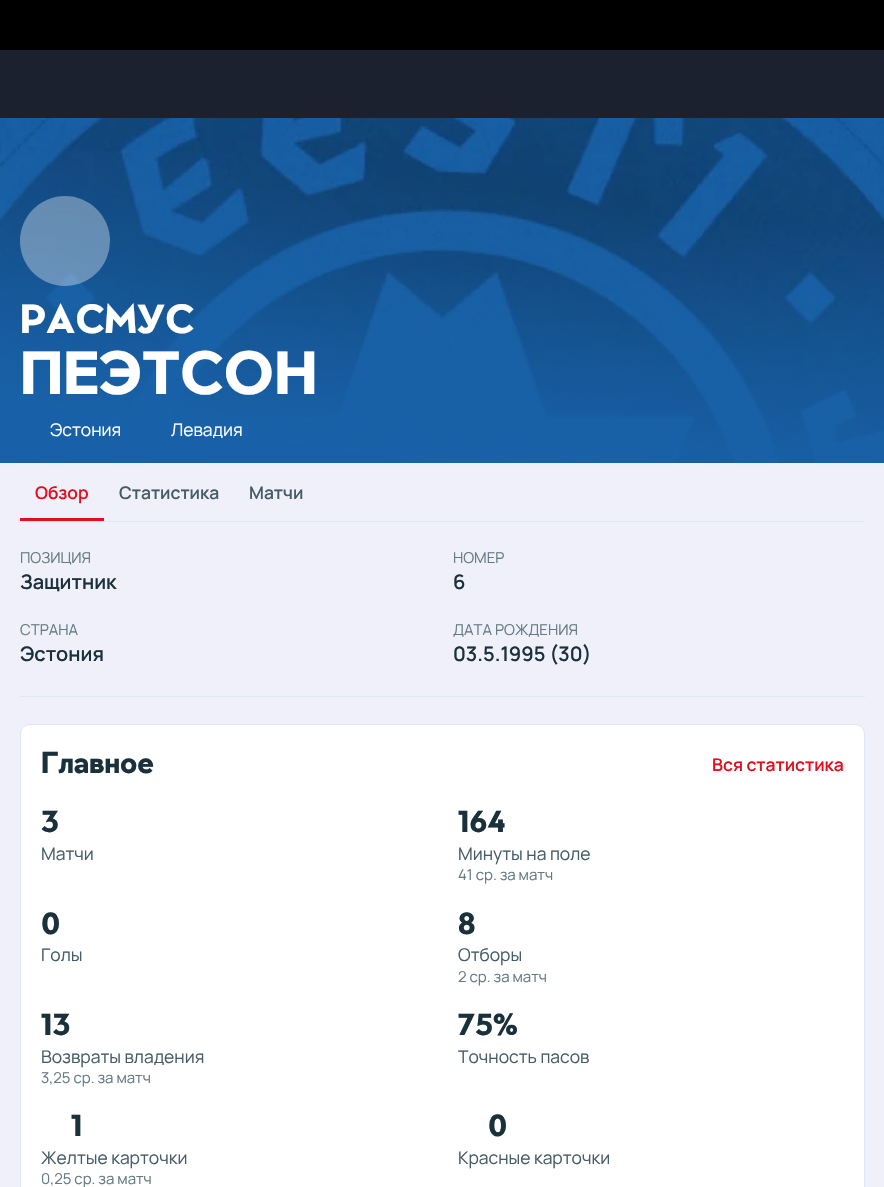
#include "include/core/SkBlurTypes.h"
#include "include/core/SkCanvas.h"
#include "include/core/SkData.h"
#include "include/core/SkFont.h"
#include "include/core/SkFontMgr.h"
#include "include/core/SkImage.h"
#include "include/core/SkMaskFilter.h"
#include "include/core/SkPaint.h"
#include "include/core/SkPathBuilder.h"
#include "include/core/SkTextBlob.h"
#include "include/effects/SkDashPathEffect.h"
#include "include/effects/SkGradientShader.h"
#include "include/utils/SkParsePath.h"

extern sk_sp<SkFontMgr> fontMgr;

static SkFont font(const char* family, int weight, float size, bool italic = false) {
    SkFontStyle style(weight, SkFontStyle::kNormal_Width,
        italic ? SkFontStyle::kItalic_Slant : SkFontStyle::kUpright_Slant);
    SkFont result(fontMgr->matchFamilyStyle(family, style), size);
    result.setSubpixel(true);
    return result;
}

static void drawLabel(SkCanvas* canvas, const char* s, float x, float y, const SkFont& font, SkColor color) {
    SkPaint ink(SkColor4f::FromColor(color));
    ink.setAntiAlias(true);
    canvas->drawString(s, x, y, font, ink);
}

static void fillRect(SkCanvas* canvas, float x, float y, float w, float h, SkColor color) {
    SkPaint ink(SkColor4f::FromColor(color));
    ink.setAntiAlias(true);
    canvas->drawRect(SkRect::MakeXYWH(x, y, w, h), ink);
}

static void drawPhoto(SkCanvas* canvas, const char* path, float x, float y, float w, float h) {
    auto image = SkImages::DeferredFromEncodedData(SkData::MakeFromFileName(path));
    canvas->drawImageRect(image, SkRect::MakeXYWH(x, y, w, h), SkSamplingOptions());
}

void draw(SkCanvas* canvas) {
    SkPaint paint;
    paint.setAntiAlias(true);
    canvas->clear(0xFFF0F0FA);
    fillRect(canvas, 0, 0, 884, 50, 0xFF000000);
    fillRect(canvas, 0, 50, 884, 68, 0xFF1B212F);
    fillRect(canvas, 0, 462, 884, 1, 0xFF1861A8);
    drawPhoto(canvas, "assets/img1.png", 0, 118, 884, 345);
    drawPhoto(canvas, "assets/img2.png", 0, 151, 884, 312);
    paint.setColor(0x59FFFFFF);
    canvas->drawCircle(65, 241, 45, paint);
    SkFont font1 = font("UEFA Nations", 700, 40);
    drawLabel(canvas, "РАСМУС", 20, 333, font1, 0xFFFFFFFF);
    SkFont font2 = font("UEFA Nations", 700, 60);
    drawLabel(canvas, "ПЕЭТСОН", 20, 394, font2, 0xFFFFFFFF);
    SkFont font3 = font("Manrope", 400, 17.5f);
    drawLabel(canvas, "Эстония", 50, 436, font3, 0xFFFFFFFF);
    drawLabel(canvas, "Левадия", 171, 436, font3, 0xFFFFFFFF);
    fillRect(canvas, 20, 521, 845, 1, 0xFFE0E6F4);
    SkFont font4 = font("Manrope", 600, 17.5f);
    drawLabel(canvas, "Обзор", 35, 499, font4, 0xFFE40E1C);
    fillRect(canvas, 20, 518, 84, 3, 0xFFE40E1C);
    drawLabel(canvas, "Статистика", 119, 499, font4, 0xFF455C67);
    drawLabel(canvas, "Матчи", 249, 499, font4, 0xFF455C67);
    SkFont font5 = font("Manrope", 400, 15);
    drawLabel(canvas, "ПОЗИЦИЯ", 20, 563, font5, 0xFF637A85);
    SkFont font6 = font("Manrope", 600, 20);
    drawLabel(canvas, "Защитник", 20, 589, font6, 0xFF1A313C);
    drawLabel(canvas, "НОМЕР", 453, 563, font5, 0xFF637A85);
    drawLabel(canvas, "6", 453, 589, font6, 0xFF1A313C);
    drawLabel(canvas, "СТРАНА", 20, 635, font5, 0xFF637A85);
    drawLabel(canvas, "Эстония", 20, 661, font6, 0xFF1A313C);
    drawLabel(canvas, "ДАТА РОЖДЕНИЯ", 453, 635, font5, 0xFF637A85);
    drawLabel(canvas, "03.5.1995 (30)", 453, 661, font6, 0xFF1A313C);
    fillRect(canvas, 20, 696, 845, 1, 0xFFE0E6F4);
    paint.setColor(0xFFFFFFFF);
    canvas->drawRoundRect(SkRect::MakeXYWH(20.5f, 724.5f, 844, 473), 9.5f, 9.5f, paint);
    paint.setStroke(true);
    paint.setStrokeWidth(1);
    paint.setColor(0xFFE0E6F4);
    canvas->drawRoundRect(SkRect::MakeXYWH(20.5f, 724.5f, 844, 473), 9.5f, 9.5f, paint);
    SkFont font7 = font("UEFA Nations", 700, 30);
    drawLabel(canvas, "Главное", 41, 773, font7, 0xFF1A313C);
    drawLabel(canvas, "Вся статистика", 712, 771, font4, 0xFFE40E1C);
    drawLabel(canvas, "3", 41, 832, font7, 0xFF1A313C);
    drawLabel(canvas, "Матчи", 41, 860, font3, 0xFF455C67);
    drawLabel(canvas, "164", 458, 832, font7, 0xFF1A313C);
    drawLabel(canvas, "Минуты на поле", 458, 860, font3, 0xFF455C67);
    drawLabel(canvas, "41 ср. за матч", 458, 880, font5, 0xFF637A85);
    drawLabel(canvas, "0", 41, 934, font7, 0xFF1A313C);
    drawLabel(canvas, "Голы", 41, 961, font3, 0xFF455C67);
    drawLabel(canvas, "8", 458, 934, font7, 0xFF1A313C);
    drawLabel(canvas, "Отборы", 458, 961, font3, 0xFF455C67);
    drawLabel(canvas, "2 ср. за матч", 458, 982, font5, 0xFF637A85);
    drawLabel(canvas, "13", 41, 1035, font7, 0xFF1A313C);
    drawLabel(canvas, "Возвраты владения", 41, 1063, font3, 0xFF455C67);
    drawLabel(canvas, "3,25 ср. за матч", 41, 1083, font5, 0xFF637A85);
    drawLabel(canvas, "75%", 458, 1035, font7, 0xFF1A313C);
    drawLabel(canvas, "Точность пасов", 458, 1063, font3, 0xFF455C67);
    drawLabel(canvas, "1", 71, 1136, font7, 0xFF1A313C);
    drawLabel(canvas, "Желтые карточки", 41, 1164, font3, 0xFF455C67);
    drawLabel(canvas, "0,25 ср. за матч", 41, 1184, font5, 0xFF637A85);
    drawLabel(canvas, "0", 488, 1136, font7, 0xFF1A313C);
    drawLabel(canvas, "Красные карточки", 458, 1164, font3, 0xFF455C67);
}
